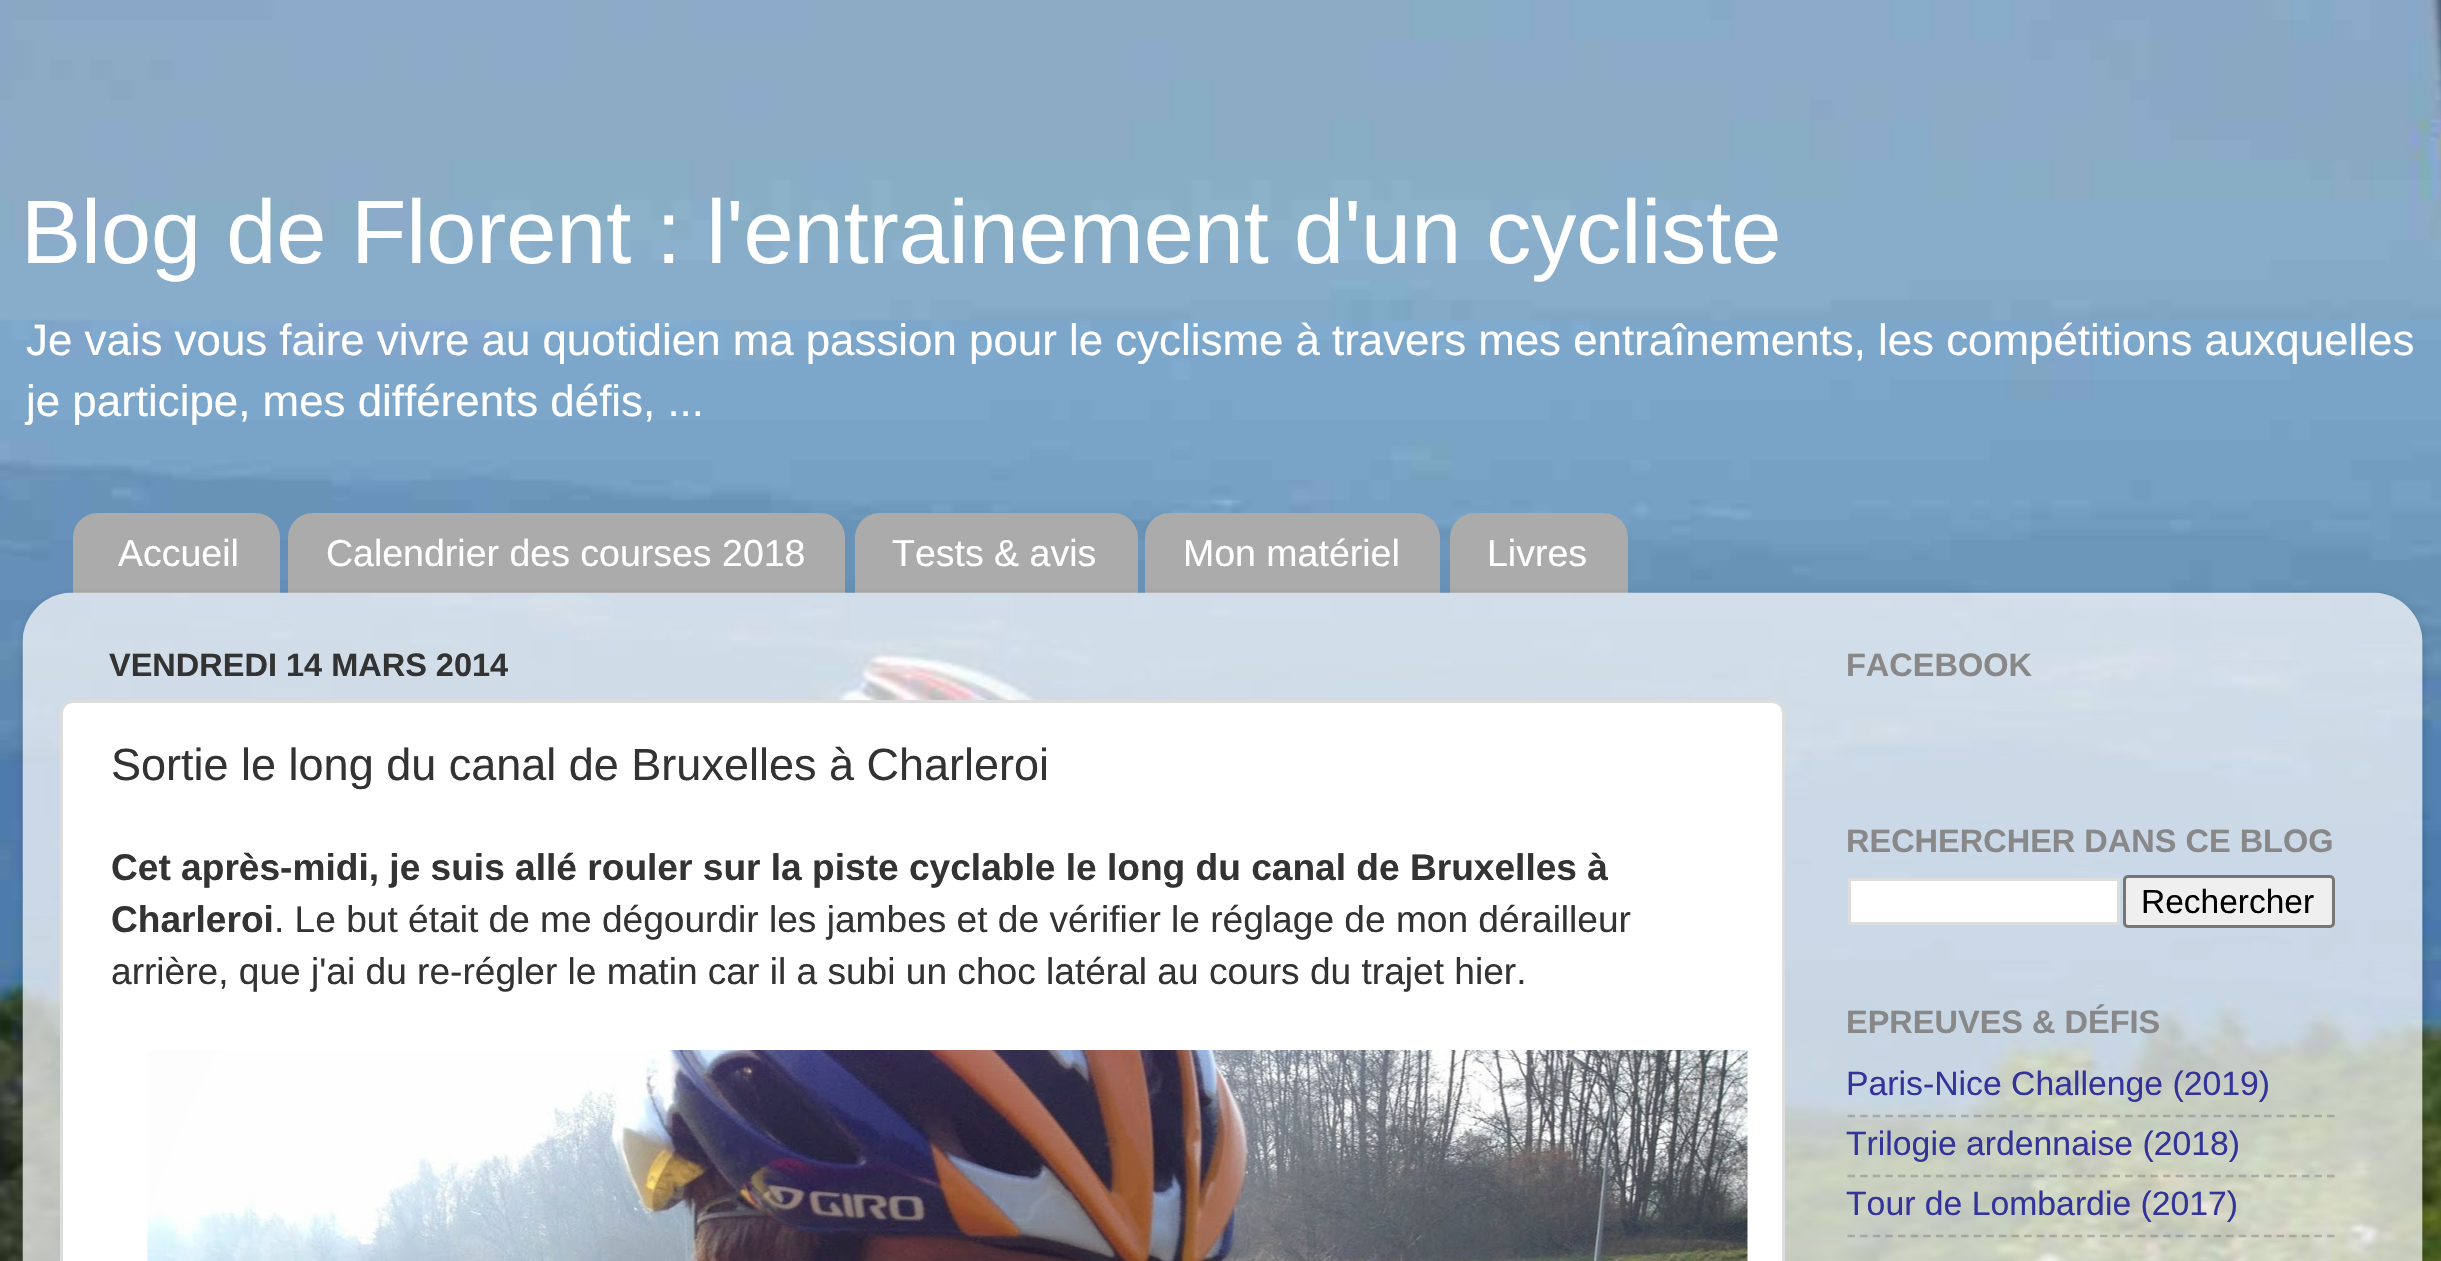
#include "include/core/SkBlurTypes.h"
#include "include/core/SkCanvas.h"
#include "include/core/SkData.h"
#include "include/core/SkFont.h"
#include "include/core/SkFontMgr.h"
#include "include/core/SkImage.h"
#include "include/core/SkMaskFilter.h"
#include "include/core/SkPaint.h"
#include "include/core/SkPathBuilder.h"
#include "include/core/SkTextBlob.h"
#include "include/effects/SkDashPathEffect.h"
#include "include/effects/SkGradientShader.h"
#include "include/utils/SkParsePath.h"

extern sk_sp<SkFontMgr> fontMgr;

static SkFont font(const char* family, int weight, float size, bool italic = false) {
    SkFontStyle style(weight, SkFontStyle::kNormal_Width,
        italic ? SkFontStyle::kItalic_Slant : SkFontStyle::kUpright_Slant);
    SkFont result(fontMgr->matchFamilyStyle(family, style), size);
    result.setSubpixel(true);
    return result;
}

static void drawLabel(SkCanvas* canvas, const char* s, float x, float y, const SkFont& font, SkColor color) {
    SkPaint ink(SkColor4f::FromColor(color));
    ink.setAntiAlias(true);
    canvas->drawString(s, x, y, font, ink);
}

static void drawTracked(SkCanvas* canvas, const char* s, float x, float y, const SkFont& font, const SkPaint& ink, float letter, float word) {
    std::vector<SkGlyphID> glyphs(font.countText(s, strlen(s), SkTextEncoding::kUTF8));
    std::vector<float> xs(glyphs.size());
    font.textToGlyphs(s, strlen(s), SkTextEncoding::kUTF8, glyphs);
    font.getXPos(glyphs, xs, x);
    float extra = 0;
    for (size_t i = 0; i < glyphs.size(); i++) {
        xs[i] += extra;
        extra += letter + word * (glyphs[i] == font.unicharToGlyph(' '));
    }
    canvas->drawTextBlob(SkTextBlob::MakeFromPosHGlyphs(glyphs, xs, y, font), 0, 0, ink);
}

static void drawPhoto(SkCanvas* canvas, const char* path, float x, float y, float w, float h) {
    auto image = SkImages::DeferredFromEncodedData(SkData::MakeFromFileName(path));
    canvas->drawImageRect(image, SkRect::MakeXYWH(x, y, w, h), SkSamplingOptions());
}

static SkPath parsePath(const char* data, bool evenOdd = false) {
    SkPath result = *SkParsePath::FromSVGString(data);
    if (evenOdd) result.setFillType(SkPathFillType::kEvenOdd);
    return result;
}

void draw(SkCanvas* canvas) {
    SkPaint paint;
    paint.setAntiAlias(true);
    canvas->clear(0xFFFFFFFF);
    drawPhoto(canvas, "assets/img1.png", 0, 0, 2441, 1261);
    SkFont font1 = font("Liberation Sans", 400, 90);
    drawLabel(canvas, "Blog de Florent : l'entrainement d'un cycliste", 21, 263, font1, 0xFFFFFFFF);
    SkFont font2 = font("Liberation Sans", 400, 43.88f);
    paint.setColor(0xFFFFFFFF);
    drawTracked(canvas, "Je vais vous faire vivre au quotidien ma passion pour le cyclisme à travers mes entraînements, les compétitions auxquelles", 26, 355, font2, paint, 0, -0.1f);
    drawLabel(canvas, "je participe, mes différents défis, ...", 26, 416, font2, 0xFFFFFFFF);
    paint.setColor(0xFFABABAB);
    canvas->drawPath(parsePath("M98 513H255C269 513 280 524 280 538V593H73V538C73 524 84 513 98 513Z"), paint);
    SkFont font3 = font("Liberation Sans", 400, 37.5f);
    drawLabel(canvas, "Accueil", 118, 566, font3, 0xFFFFFFFF);
    canvas->drawPath(parsePath("M313 513H820C834 513 845 524 845 538V593H288V538C288 524 299 513 313 513Z"), paint);
    drawLabel(canvas, "Calendrier des courses 2018", 326, 566, font3, 0xFFFFFFFF);
    canvas->drawPath(parsePath("M880 513H1113C1127 513 1138 524 1138 538V593H855V538C855 524 866 513 880 513Z"), paint);
    drawLabel(canvas, "Tests & avis", 892, 566, font3, 0xFFFFFFFF);
    canvas->drawPath(parsePath("M1170 513H1415C1429 513 1440 524 1440 538V593H1145V538C1145 524 1156 513 1170 513Z"), paint);
    drawLabel(canvas, "Mon matériel", 1183, 566, font3, 0xFFFFFFFF);
    canvas->drawPath(parsePath("M1475 513H1603C1617 513 1628 524 1628 538V593H1450V538C1450 524 1461 513 1475 513Z"), paint);
    drawLabel(canvas, "Livres", 1487, 566, font3, 0xFFFFFFFF);
    canvas->save();
    canvas->clipPath(parsePath("M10 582H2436V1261H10ZM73 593H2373C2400.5 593 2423 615.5 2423 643V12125H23V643C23 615.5 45.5 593 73 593Z", true), true);
    paint.setColor(0x26000000);
    paint.setMaskFilter(SkMaskFilter::MakeBlur(kNormal_SkBlurStyle, 4));
    canvas->drawRoundRect(SkRect::MakeXYWH(23, 595, 2400, 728), 50, 50, paint);
    paint.setMaskFilter(nullptr);
    canvas->restore();
    drawPhoto(canvas, "assets/img2.png", 22, 592, 2401, 669);
    SkFont font4 = font("Liberation Sans", 700, 32.5f);
    drawLabel(canvas, "VENDREDI 14 MARS 2014", 109, 676, font4, 0xFF333333);
    paint.setColor(0xFFFFFFFF);
    canvas->drawRoundRect(SkRect::MakeXYWH(61.5f, 701.5f, 1722, 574), 11.5f, 11.5f, paint);
    paint.setStroke(true);
    paint.setStrokeWidth(3);
    paint.setColor(0xFFDDDDDD);
    canvas->drawRoundRect(SkRect::MakeXYWH(61.5f, 701.5f, 1722, 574), 11.5f, 11.5f, paint);
    SkFont font5 = font("Liberation Sans", 400, 45);
    drawLabel(canvas, "Sortie le long du canal de Bruxelles à Charleroi", 111, 780, font5, 0xFF333333);
    SkFont font6 = font("Liberation Sans", 700, 37.1f);
    drawLabel(canvas, "Cet après-midi, je suis allé rouler sur la piste cyclable le long du canal de Bruxelles à", 111, 880, font6, 0xFF333333);
    drawLabel(canvas, "Charleroi", 111, 932, font6, 0xFF333333);
    SkFont font7 = font("Liberation Sans", 400, 37.1f);
    drawLabel(canvas, ". Le but était de me dégourdir les jambes et de vérifier le réglage de mon dérailleur", 274, 932, font7, 0xFF333333);
    drawLabel(canvas, "arrière, que j'ai du re-régler le matin car il a subi un choc latéral au cours du trajet hier.", 111, 984, font7, 0xFF333333);
    drawPhoto(canvas, "assets/img3.png", 147, 1050, 1601, 211);
    drawLabel(canvas, "FACEBOOK", 1846, 676, font4, 0xFF888888);
    drawLabel(canvas, "RECHERCHER DANS CE BLOG", 1846, 852, font4, 0xFF888888);
    paint.setStroke(false);
    paint.setColor(0xFFFFFFFF);
    canvas->drawRect(SkRect::MakeXYWH(1849.5f, 879.5f, 269, 44), paint);
    paint.setStroke(true);
    paint.setColor(0xFFDDDDDD);
    canvas->drawRect(SkRect::MakeXYWH(1849.5f, 879.5f, 269, 44), paint);
    paint.setStroke(false);
    paint.setColor(0xFFEFEFEF);
    canvas->drawRoundRect(SkRect::MakeXYWH(2124.5f, 876.5f, 209, 50), 3.5f, 3.5f, paint);
    paint.setStroke(true);
    paint.setColor(0xFF767676);
    canvas->drawRoundRect(SkRect::MakeXYWH(2124.5f, 876.5f, 209, 50), 3.5f, 3.5f, paint);
    SkFont font8 = font("Liberation Sans", 400, 33.5f);
    drawLabel(canvas, "Rechercher", 2141, 913, font8, 0xFF000000);
    drawLabel(canvas, "EPREUVES & DÉFIS", 1846, 1033, font4, 0xFF888888);
    SkFont font9 = font("Liberation Sans", 400, 33.75f);
    drawLabel(canvas, "Paris-Nice Challenge (2019)", 1846, 1095, font9, 0xFF333399);
    paint.setStrokeWidth(2.5f);
    paint.setColor(0x80808080);
    paint.setPathEffect(SkDashPathEffect::Make({{7.5f, 5.12f}}, 0));
    canvas->drawPath(parsePath("M1847.5 1116H2335"), paint);
    paint.setPathEffect(nullptr);
    drawLabel(canvas, "Trilogie ardennaise (2018)", 1846, 1155, font9, 0xFF333399);
    paint.setPathEffect(SkDashPathEffect::Make({{7.5f, 5.12f}}, 0));
    canvas->drawPath(parsePath("M1847.5 1176H2335"), paint);
    paint.setPathEffect(nullptr);
    drawLabel(canvas, "Tour de Lombardie (2017)", 1846, 1215, font9, 0xFF333399);
    paint.setPathEffect(SkDashPathEffect::Make({{7.5f, 5.12f}}, 0));
    canvas->drawPath(parsePath("M1847.5 1236H2335"), paint);
    paint.setPathEffect(nullptr);
}
